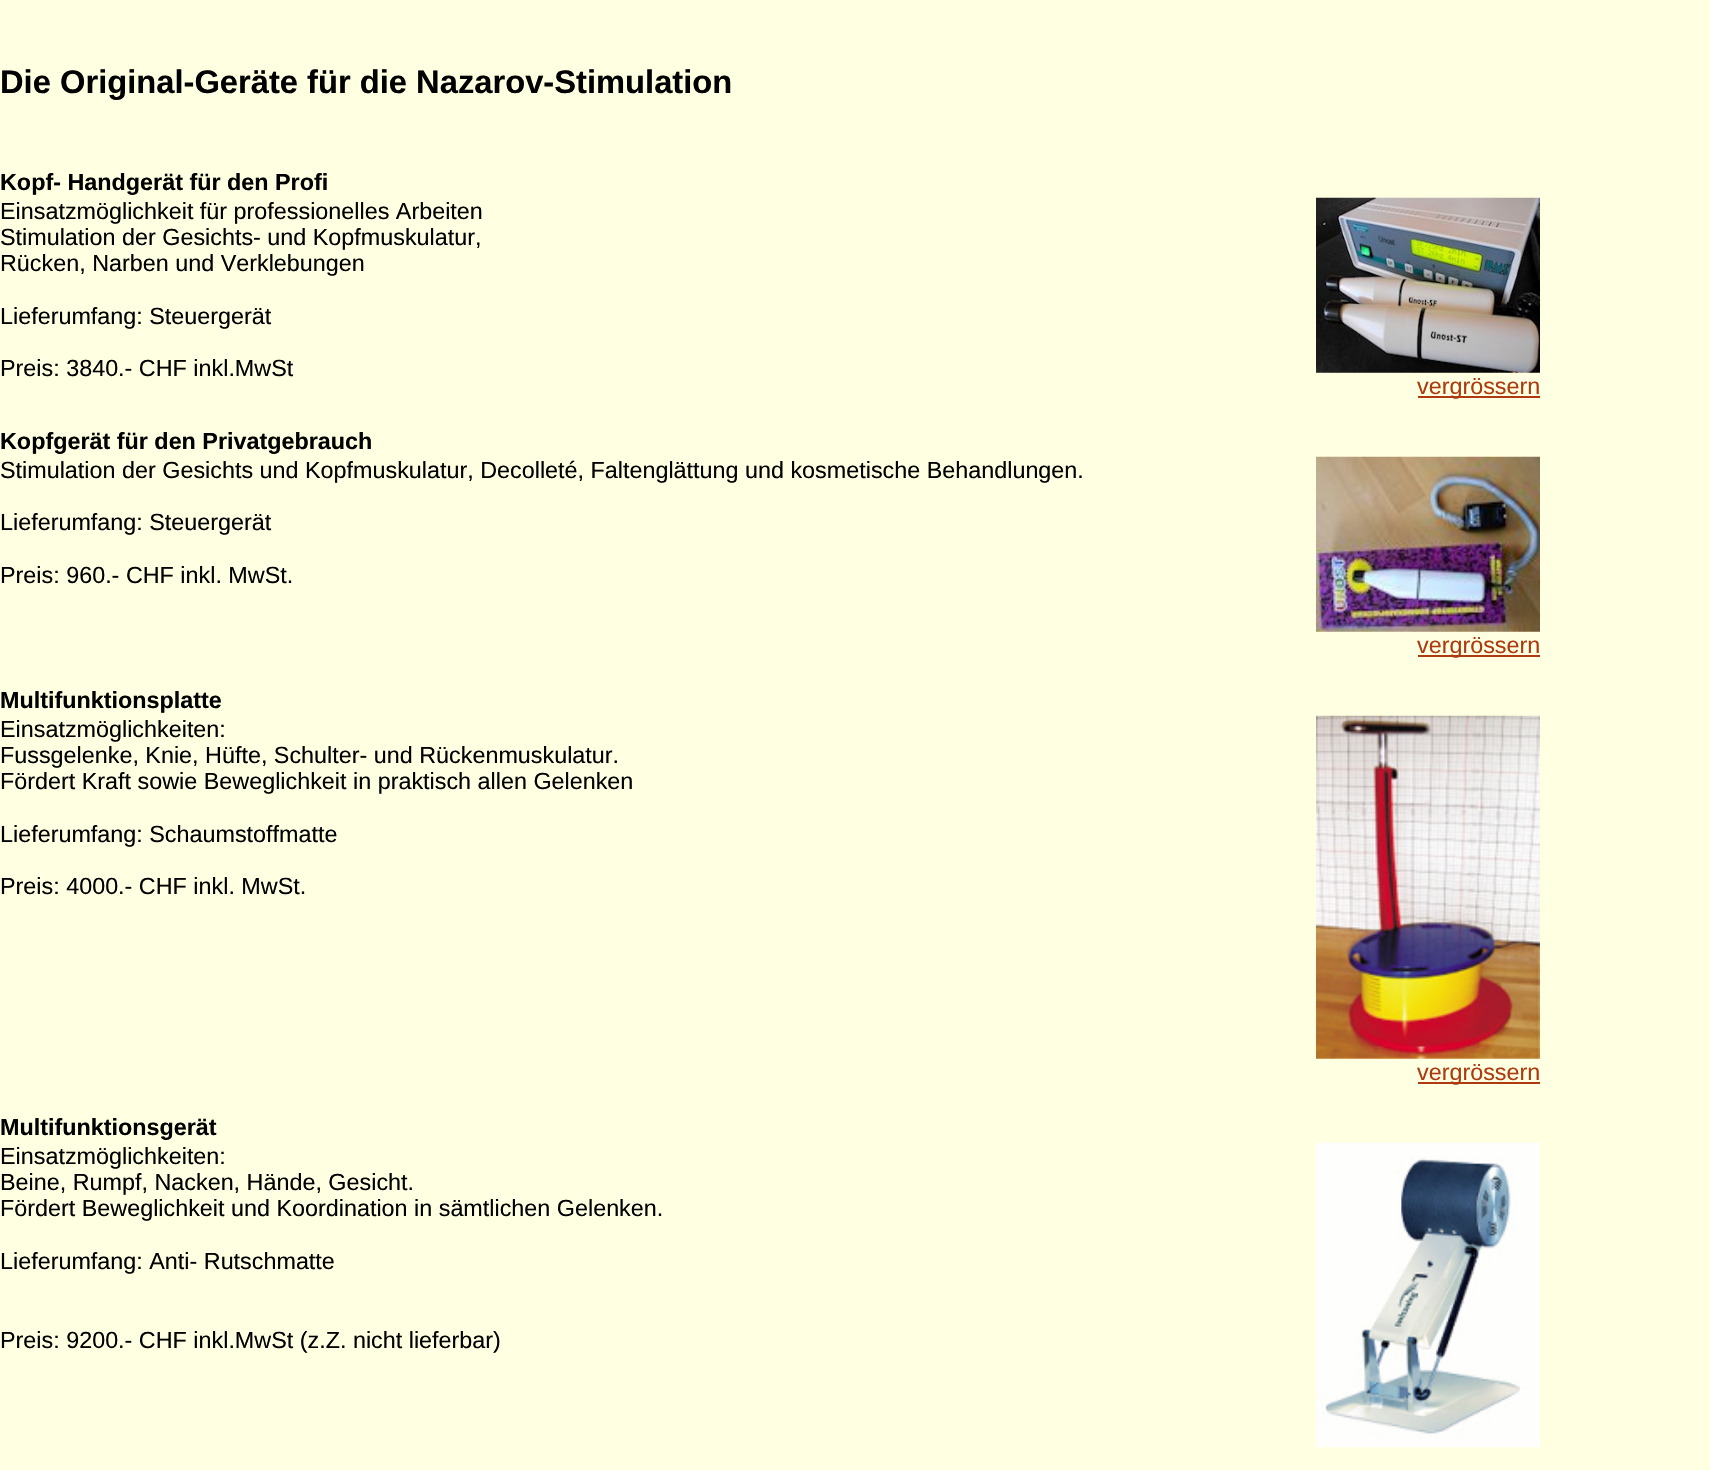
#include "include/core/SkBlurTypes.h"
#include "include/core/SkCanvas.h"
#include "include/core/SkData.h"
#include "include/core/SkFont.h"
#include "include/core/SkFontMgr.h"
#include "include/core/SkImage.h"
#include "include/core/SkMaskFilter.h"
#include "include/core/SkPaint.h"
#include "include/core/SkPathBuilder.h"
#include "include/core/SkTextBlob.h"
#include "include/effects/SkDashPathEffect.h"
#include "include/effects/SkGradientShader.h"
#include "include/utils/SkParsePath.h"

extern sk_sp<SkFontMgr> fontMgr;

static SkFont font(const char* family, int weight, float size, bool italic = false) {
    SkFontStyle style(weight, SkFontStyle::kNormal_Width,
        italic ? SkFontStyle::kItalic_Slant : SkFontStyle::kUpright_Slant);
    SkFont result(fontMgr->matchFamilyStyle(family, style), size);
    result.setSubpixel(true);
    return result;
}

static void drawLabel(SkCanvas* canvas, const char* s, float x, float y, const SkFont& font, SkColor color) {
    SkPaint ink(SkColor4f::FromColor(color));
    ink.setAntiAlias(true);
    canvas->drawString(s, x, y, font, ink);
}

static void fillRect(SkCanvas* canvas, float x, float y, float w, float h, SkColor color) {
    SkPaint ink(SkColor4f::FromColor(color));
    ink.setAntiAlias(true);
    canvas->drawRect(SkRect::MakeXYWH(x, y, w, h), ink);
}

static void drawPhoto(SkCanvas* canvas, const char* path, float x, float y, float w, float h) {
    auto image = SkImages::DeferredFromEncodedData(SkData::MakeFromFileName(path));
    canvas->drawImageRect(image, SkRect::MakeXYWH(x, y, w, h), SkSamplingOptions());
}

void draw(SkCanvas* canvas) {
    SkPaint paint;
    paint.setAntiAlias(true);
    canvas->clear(0xFFFFFFE1);
    SkFont font1 = font("Liberation Sans", 700, 32.7f);
    drawLabel(canvas, "Die Original-Geräte für die Nazarov-Stimulation", 0, 93, font1, 0xFF000000);
    SkFont font2 = font("Liberation Sans", 700, 23.35f);
    drawLabel(canvas, "Kopf- Handgerät für den Profi", 0, 190, font2, 0xFF000000);
    SkFont font3 = font("Liberation Sans", 400, 23.35f);
    drawLabel(canvas, "Einsatzmöglichkeit für professionelles Arbeiten", 0, 219, font3, 0xFF000000);
    drawLabel(canvas, "Stimulation der Gesichts- und Kopfmuskulatur,", 0, 245, font3, 0xFF000000);
    drawLabel(canvas, "Rücken, Narben und Verklebungen", 0, 271, font3, 0xFF000000);
    drawLabel(canvas, "Lieferumfang: Steuergerät", 0, 324, font3, 0xFF000000);
    drawLabel(canvas, "Preis: 3840.- CHF inkl.MwSt", 0, 376, font3, 0xFF000000);
    drawPhoto(canvas, "assets/img1.png", 1316, 197, 224, 176);
    fillRect(canvas, 1418, 396, 122, 2, 0xFFAD3A10);
    drawLabel(canvas, "vergrössern", 1417, 394, font3, 0xFFAD3A10);
    drawLabel(canvas, "Kopfgerät für den Privatgebrauch", 0, 449, font2, 0xFF000000);
    drawLabel(canvas, "Stimulation der Gesichts und Kopfmuskulatur, Decolleté, Faltenglättung und kosmetische Behandlungen.", 0, 478, font3, 0xFF000000);
    drawLabel(canvas, "Lieferumfang: Steuergerät", 0, 530, font3, 0xFF000000);
    drawLabel(canvas, "Preis: 960.- CHF inkl. MwSt.", 0, 583, font3, 0xFF000000);
    drawPhoto(canvas, "assets/img2.png", 1316, 456, 224, 176);
    fillRect(canvas, 1418, 655, 122, 2, 0xFFAD3A10);
    drawLabel(canvas, "vergrössern", 1417, 653, font3, 0xFFAD3A10);
    drawLabel(canvas, "Multifunktionsplatte", 0, 708, font2, 0xFF000000);
    drawLabel(canvas, "Einsatzmöglichkeiten:", 0, 737, font3, 0xFF000000);
    drawLabel(canvas, "Fussgelenke, Knie, Hüfte, Schulter- und Rückenmuskulatur.", 0, 763, font3, 0xFF000000);
    drawLabel(canvas, "Fördert Kraft sowie Beweglichkeit in praktisch allen Gelenken", 0, 789, font3, 0xFF000000);
    drawLabel(canvas, "Lieferumfang: Schaumstoffmatte", 0, 842, font3, 0xFF000000);
    drawLabel(canvas, "Preis: 4000.- CHF inkl. MwSt.", 0, 894, font3, 0xFF000000);
    drawPhoto(canvas, "assets/img3.png", 1316, 715, 224, 344);
    fillRect(canvas, 1418, 1082, 122, 2, 0xFFAD3A10);
    drawLabel(canvas, "vergrössern", 1417, 1080, font3, 0xFFAD3A10);
    drawLabel(canvas, "Multifunktionsgerät", 0, 1135, font2, 0xFF000000);
    drawLabel(canvas, "Einsatzmöglichkeiten:", 0, 1164, font3, 0xFF000000);
    drawLabel(canvas, "Beine, Rumpf, Nacken, Hände, Gesicht.", 0, 1190, font3, 0xFF000000);
    drawLabel(canvas, "Fördert Beweglichkeit und Koordination in sämtlichen Gelenken.", 0, 1216, font3, 0xFF000000);
    drawLabel(canvas, "Lieferumfang: Anti- Rutschmatte", 0, 1269, font3, 0xFF000000);
    drawLabel(canvas, "Preis: 9200.- CHF inkl.MwSt (z.Z. nicht lieferbar)", 0, 1348, font3, 0xFF000000);
    drawPhoto(canvas, "assets/img4.png", 1316, 1142, 224, 306);
}
